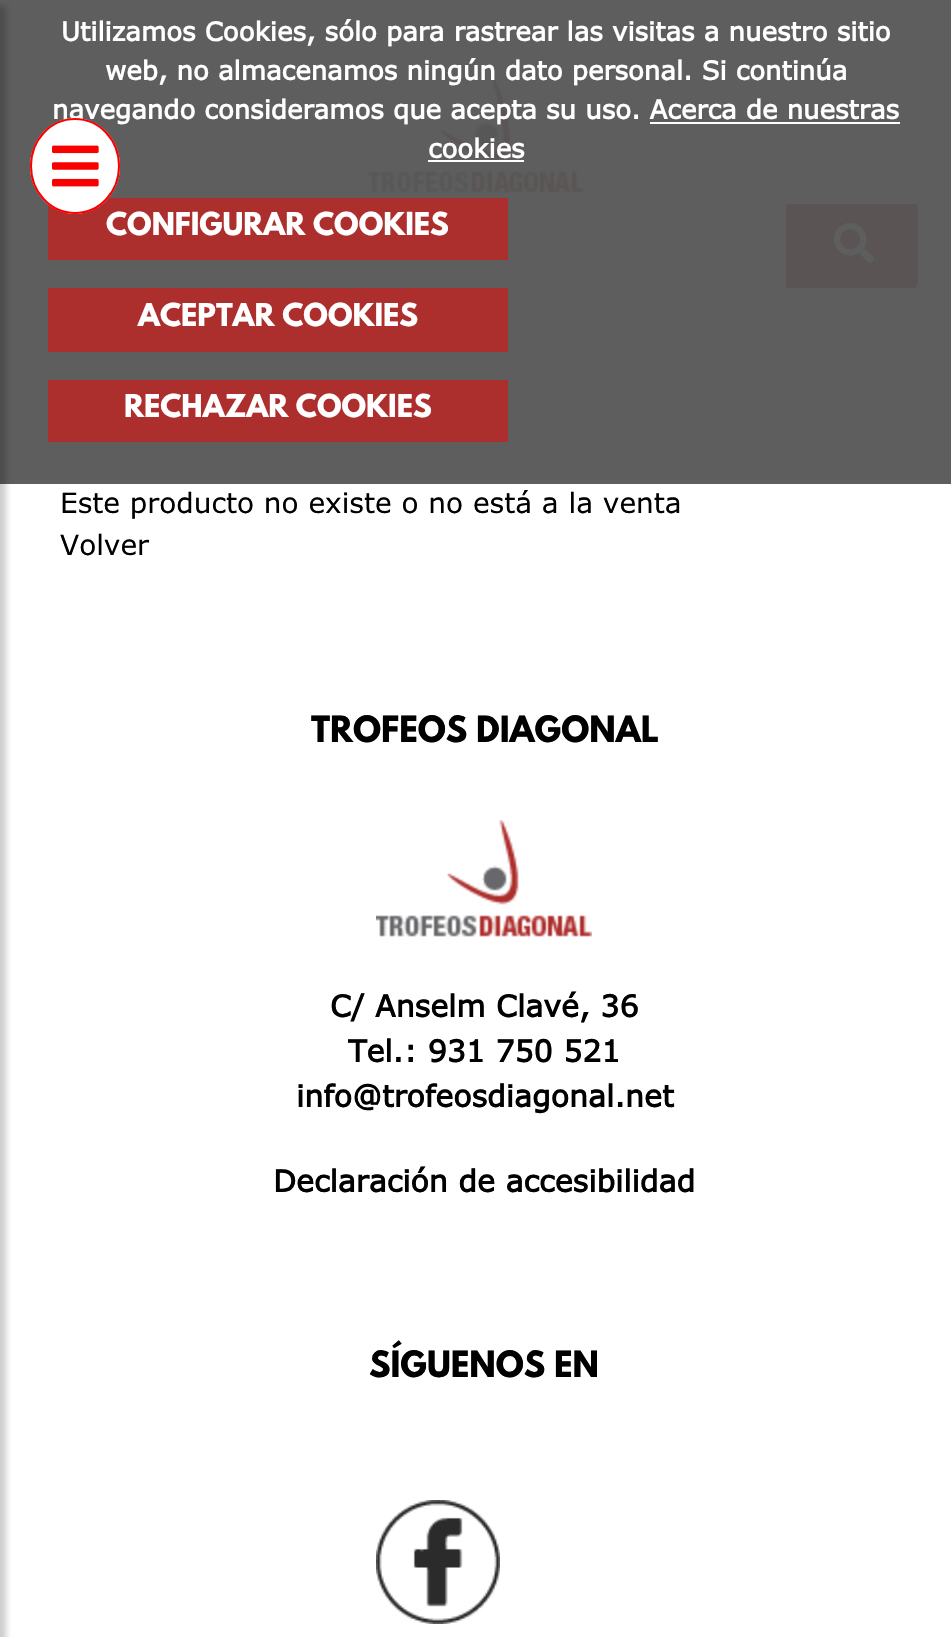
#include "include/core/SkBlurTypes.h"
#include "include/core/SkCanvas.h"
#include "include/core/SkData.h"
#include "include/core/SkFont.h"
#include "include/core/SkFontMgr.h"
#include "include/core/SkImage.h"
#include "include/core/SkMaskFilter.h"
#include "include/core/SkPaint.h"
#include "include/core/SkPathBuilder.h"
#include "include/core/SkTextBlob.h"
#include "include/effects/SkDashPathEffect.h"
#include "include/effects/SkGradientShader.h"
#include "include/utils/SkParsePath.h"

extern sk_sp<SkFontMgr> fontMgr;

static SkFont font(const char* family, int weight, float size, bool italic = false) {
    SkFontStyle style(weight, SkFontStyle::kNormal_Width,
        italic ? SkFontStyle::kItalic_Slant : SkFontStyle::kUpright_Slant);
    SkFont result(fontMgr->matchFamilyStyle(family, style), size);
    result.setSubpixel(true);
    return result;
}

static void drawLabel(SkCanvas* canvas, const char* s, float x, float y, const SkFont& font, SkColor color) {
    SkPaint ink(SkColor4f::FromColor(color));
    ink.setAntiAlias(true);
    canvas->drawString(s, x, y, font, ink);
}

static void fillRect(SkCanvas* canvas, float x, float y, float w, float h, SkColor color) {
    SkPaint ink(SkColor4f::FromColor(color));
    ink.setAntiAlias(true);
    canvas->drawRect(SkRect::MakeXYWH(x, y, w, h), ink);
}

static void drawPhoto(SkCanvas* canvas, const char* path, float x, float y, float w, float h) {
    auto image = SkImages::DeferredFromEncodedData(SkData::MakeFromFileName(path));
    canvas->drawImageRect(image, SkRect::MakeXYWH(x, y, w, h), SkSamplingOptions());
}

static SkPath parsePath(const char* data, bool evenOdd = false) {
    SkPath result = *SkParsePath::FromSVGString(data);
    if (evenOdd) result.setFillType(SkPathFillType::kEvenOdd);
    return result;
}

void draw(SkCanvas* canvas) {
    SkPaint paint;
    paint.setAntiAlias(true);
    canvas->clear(0xFFFFFFFF);
    fillRect(canvas, 0, 0, 951, 484, 0xFF5E5E5E);
    paint.setColor(0x33000000);
    paint.setMaskFilter(SkMaskFilter::MakeBlur(kNormal_SkBlurStyle, 3));
    canvas->drawRect(SkRect::MakeXYWH(-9, 6, 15, 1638), paint);
    paint.setMaskFilter(nullptr);
    SkFont font1 = font("Verdana", 700, 26);
    drawLabel(canvas, "Utilizamos Cookies, sólo para rastrear las visitas a nuestro sitio", 61, 41, font1, 0xFFFFFFFF);
    drawPhoto(canvas, "assets/img2.png", 368, 76, 216, 117);
    drawLabel(canvas, "web, no almacenamos ningún dato personal. Si continúa", 105, 80, font1, 0xFFFFFFFF);
    drawLabel(canvas, "navegando consideramos que acepta su uso. Acerca de nuestras", 52, 119, font1, 0xFFFFFFFF);
    drawLabel(canvas, "cookies", 428, 158, font1, 0xFFFFFFFF);
    fillRect(canvas, 650, 122, 250, 2, 0xFFFFFFFF);
    fillRect(canvas, 428, 160, 96, 2, 0xFFFFFFFF);
    fillRect(canvas, 48, 198, 460, 62, 0xFFAC2F2E);
    SkFont font2 = font("League Spartan", 700, 28);
    drawLabel(canvas, "CONFIGURAR COOKIES", 106, 235, font2, 0xFFFFFFFF);
    fillRect(canvas, 48, 288, 460, 64, 0xFFAC2F2E);
    drawLabel(canvas, "ACEPTAR COOKIES", 138, 326, font2, 0xFFFFFFFF);
    fillRect(canvas, 48, 380, 460, 62, 0xFFAC2F2E);
    drawLabel(canvas, "RECHAZAR COOKIES", 124, 417, font2, 0xFFFFFFFF);
    paint.setColor(0xFFFFFFFF);
    canvas->drawOval(SkRect::MakeXYWH(30, 118, 90, 96), paint);
    paint.setStroke(true);
    paint.setStrokeWidth(2);
    paint.setColor(0xFFFB0000);
    canvas->drawPath(parsePath("M75 119C99.5 119 119 140 119 166C119 192 99.5 213 75 213C50.5 213 31 192 31 166C31 140 50.5 119 75 119Z"), paint);
    drawPhoto(canvas, "assets/img1.png", 52, 145, 47, 42);
    paint.setStroke(false);
    paint.setColor(0xFF5A5454);
    canvas->drawPath(parsePath("M786 204H914C916 204 918 206 918 208V284C918 286 916 288 914 288H786Z"), paint);
    drawPhoto(canvas, "assets/img3.png", 834, 223, 40, 40);
    SkFont font3 = font("Verdana", 400, 28);
    drawLabel(canvas, "Este producto no existe o no está a la venta", 60, 513, font3, 0xFF000000);
    drawLabel(canvas, "Volver", 60, 555, font3, 0xFF000000);
    SkFont font4 = font("League Spartan", 700, 32);
    drawLabel(canvas, "TROFEOS DIAGONAL", 311, 742, font4, 0xFF000000);
    drawPhoto(canvas, "assets/img4.png", 376, 820, 216, 117);
    SkFont font5 = font("Verdana", 700, 30);
    drawLabel(canvas, "C/ Anselm Clavé, 36", 330, 1017, font5, 0xFF000000);
    drawLabel(canvas, "Tel.: 931 750 521", 348, 1062, font5, 0xFF000000);
    drawLabel(canvas, "info@trofeosdiagonal.net", 296, 1107, font5, 0xFF000000);
    drawLabel(canvas, "Declaración de accesibilidad", 273, 1192, font5, 0xFF000000);
    drawLabel(canvas, "SÍGUENOS EN", 369, 1377, font4, 0xFF000000);
    drawPhoto(canvas, "assets/img5.png", 376, 1500, 124, 124);
}
